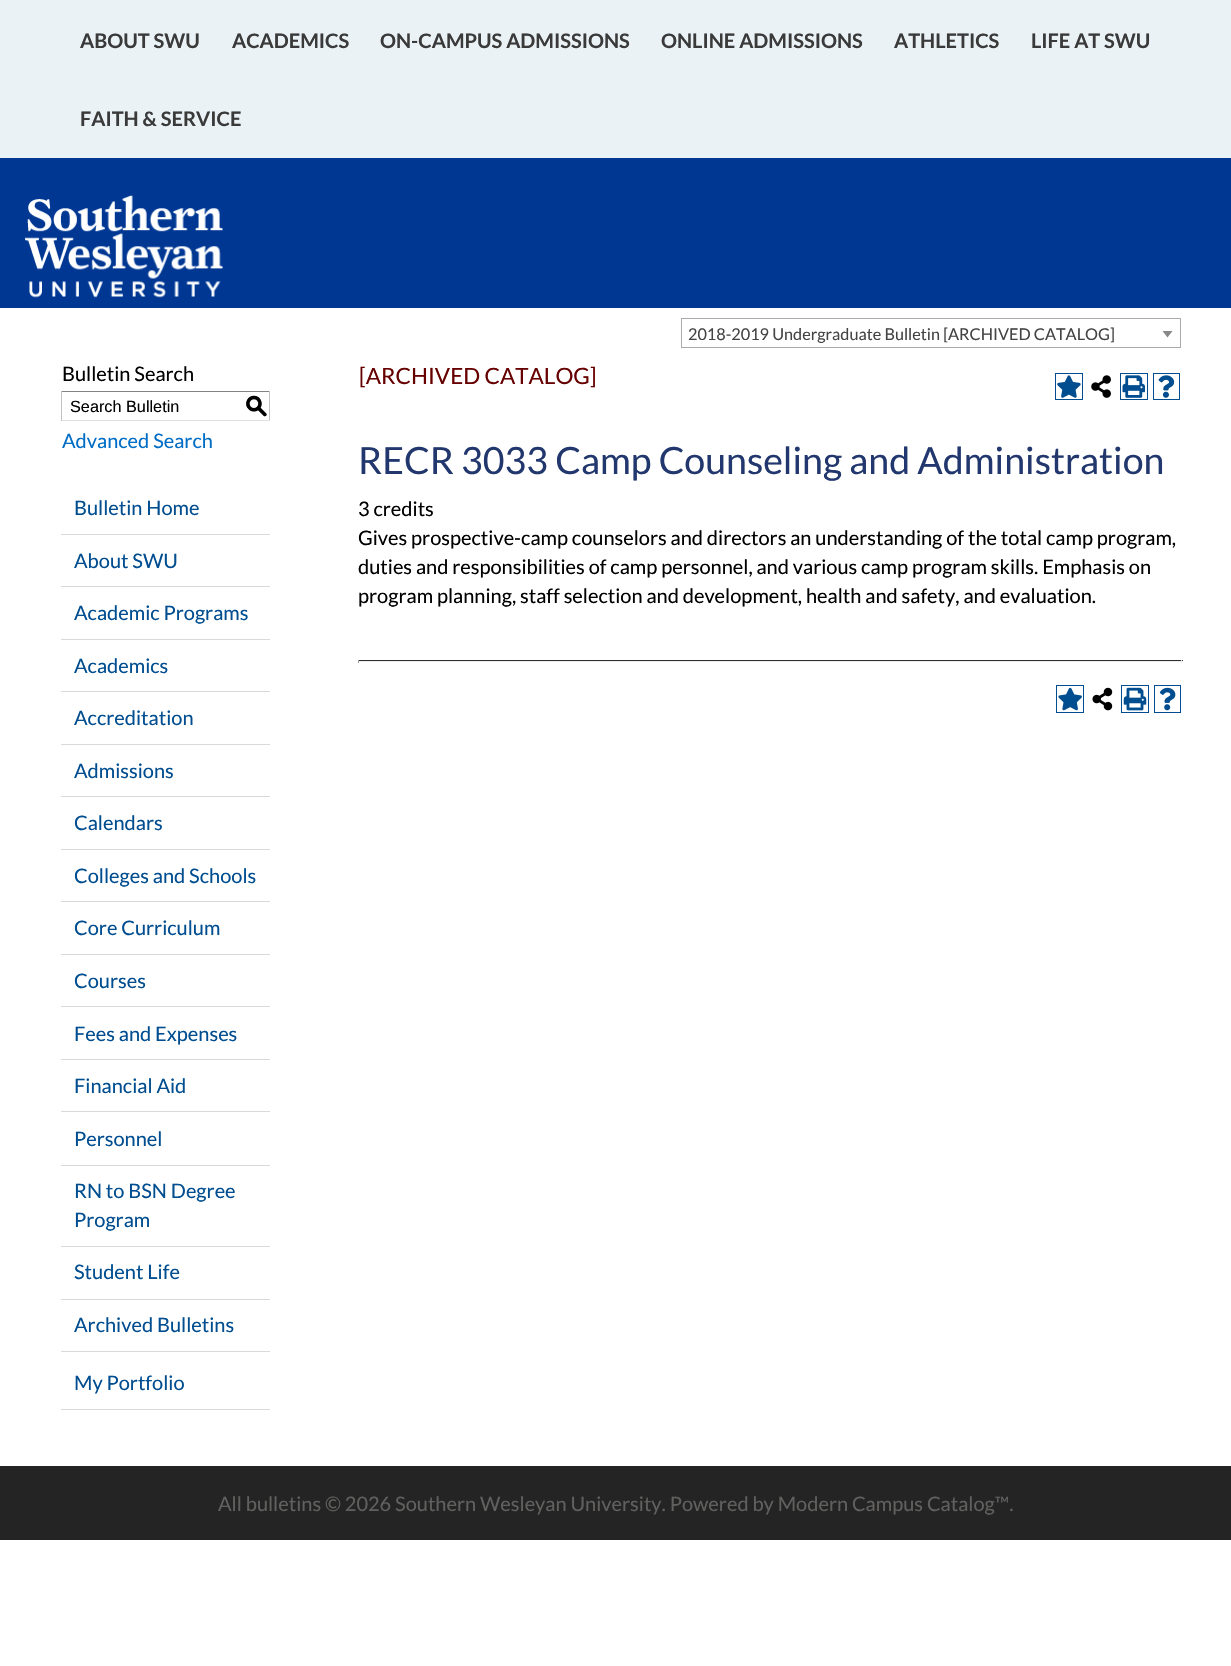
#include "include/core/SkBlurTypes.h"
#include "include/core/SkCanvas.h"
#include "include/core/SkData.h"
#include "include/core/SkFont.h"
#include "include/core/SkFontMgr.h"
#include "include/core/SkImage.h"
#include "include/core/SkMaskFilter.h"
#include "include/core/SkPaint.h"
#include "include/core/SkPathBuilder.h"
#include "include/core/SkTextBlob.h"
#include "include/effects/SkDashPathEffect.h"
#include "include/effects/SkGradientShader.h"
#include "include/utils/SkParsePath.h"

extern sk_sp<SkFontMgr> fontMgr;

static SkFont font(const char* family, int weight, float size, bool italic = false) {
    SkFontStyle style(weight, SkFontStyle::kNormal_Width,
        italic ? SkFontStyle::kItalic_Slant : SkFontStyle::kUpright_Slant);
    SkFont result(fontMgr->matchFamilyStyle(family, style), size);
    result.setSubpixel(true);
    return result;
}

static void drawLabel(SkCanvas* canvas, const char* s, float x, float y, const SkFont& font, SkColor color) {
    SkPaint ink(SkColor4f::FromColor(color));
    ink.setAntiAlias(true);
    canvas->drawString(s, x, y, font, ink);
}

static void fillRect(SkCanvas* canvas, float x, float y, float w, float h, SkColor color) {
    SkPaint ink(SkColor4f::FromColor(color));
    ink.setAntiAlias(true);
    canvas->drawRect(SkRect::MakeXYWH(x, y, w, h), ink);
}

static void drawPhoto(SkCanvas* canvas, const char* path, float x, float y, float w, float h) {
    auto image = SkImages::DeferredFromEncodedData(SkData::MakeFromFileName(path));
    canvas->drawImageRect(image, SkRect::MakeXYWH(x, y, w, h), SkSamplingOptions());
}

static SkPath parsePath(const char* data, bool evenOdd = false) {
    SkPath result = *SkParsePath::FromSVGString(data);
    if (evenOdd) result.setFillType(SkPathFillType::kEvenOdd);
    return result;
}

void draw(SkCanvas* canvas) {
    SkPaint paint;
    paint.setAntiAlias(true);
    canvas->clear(0xFFFFFFFF);
    fillRect(canvas, 0, 0, 1231, 158, 0xFFEAF2F5);
    SkFont font1 = font("Lato", 700, 20);
    drawLabel(canvas, "ABOUT SWU", 80, 48, font1, 0xFF3A3A3A);
    drawLabel(canvas, "ACADEMICS", 232, 48, font1, 0xFF3A3A3A);
    drawLabel(canvas, "ON-CAMPUS ADMISSIONS", 380, 48, font1, 0xFF3A3A3A);
    drawLabel(canvas, "ONLINE ADMISSIONS", 661, 48, font1, 0xFF3A3A3A);
    drawLabel(canvas, "ATHLETICS", 894, 48, font1, 0xFF3A3A3A);
    drawLabel(canvas, "LIFE AT SWU", 1031, 48, font1, 0xFF3A3A3A);
    drawLabel(canvas, "FAITH & SERVICE", 80, 126, font1, 0xFF3A3A3A);
    fillRect(canvas, 0, 158, 1231, 150, 0xFF003793);
    drawPhoto(canvas, "assets/img1.png", 25, 195, 198, 103);
    paint.setStroke(true);
    paint.setStrokeWidth(1);
    paint.setColor(0xFFAAAAAA);
    canvas->drawRect(SkRect::MakeXYWH(681.5f, 318.5f, 499, 29), paint);
    SkFont font2 = font("Lato", 400, 16.25f);
    drawLabel(canvas, "2018-2019 Undergraduate Bulletin [ARCHIVED CATALOG]", 688, 340, font2, 0xFF444444);
    paint.setStroke(false);
    paint.setColor(0xFF888888);
    canvas->drawPath(parsePath("M1162.5 331H1172.5L1167.5 337.5Z"), paint);
    SkFont font3 = font("Lato", 400, 20);
    drawLabel(canvas, "Bulletin Search", 62, 381, font3, 0xFF000000);
    fillRect(canvas, 61, 391, 209, 1, 0xFF848484);
    fillRect(canvas, 269, 391, 1, 30, 0xFFC1C1C1);
    fillRect(canvas, 61, 420, 209, 1, 0xFFE1E1E1);
    fillRect(canvas, 61, 391, 1, 30, 0xFFC1C1C1);
    SkFont font4 = font("Liberation Sans", 400, 16.25f);
    drawLabel(canvas, "Search Bulletin", 70, 412, font4, 0xFF000000);
    SkFont font5 = font("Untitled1", 500, 22.5f);
    drawLabel(canvas, "S", 245, 413, font5, 0xFF000000);
    drawLabel(canvas, "Advanced Search", 62, 448, font3, 0xFF006DC6);
    fillRect(canvas, 61, 534, 209, 1, 0xFFD8D9D9);
    drawLabel(canvas, "Bulletin Home", 74, 515, font3, 0xFF004D90);
    fillRect(canvas, 61, 586, 209, 1, 0xFFD8D9D9);
    drawLabel(canvas, "About SWU", 74, 568, font3, 0xFF004D90);
    fillRect(canvas, 61, 639, 209, 1, 0xFFD8D9D9);
    drawLabel(canvas, "Academic Programs", 74, 620, font3, 0xFF004D90);
    fillRect(canvas, 61, 691, 209, 1, 0xFFD8D9D9);
    drawLabel(canvas, "Academics", 74, 673, font3, 0xFF004D90);
    fillRect(canvas, 61, 744, 209, 1, 0xFFD8D9D9);
    drawLabel(canvas, "Accreditation", 74, 725, font3, 0xFF004D90);
    fillRect(canvas, 61, 796, 209, 1, 0xFFD8D9D9);
    drawLabel(canvas, "Admissions", 74, 778, font3, 0xFF004D90);
    fillRect(canvas, 61, 849, 209, 1, 0xFFD8D9D9);
    drawLabel(canvas, "Calendars", 74, 830, font3, 0xFF004D90);
    fillRect(canvas, 61, 901, 209, 1, 0xFFD8D9D9);
    drawLabel(canvas, "Colleges and Schools", 74, 883, font3, 0xFF004D90);
    fillRect(canvas, 61, 954, 209, 1, 0xFFD8D9D9);
    drawLabel(canvas, "Core Curriculum", 74, 935, font3, 0xFF004D90);
    fillRect(canvas, 61, 1006, 209, 1, 0xFFD8D9D9);
    drawLabel(canvas, "Courses", 74, 988, font3, 0xFF004D90);
    fillRect(canvas, 61, 1059, 209, 1, 0xFFD8D9D9);
    drawLabel(canvas, "Fees and Expenses", 74, 1041, font3, 0xFF004D90);
    fillRect(canvas, 61, 1111, 209, 1, 0xFFD8D9D9);
    drawLabel(canvas, "Financial Aid", 74, 1093, font3, 0xFF004D90);
    fillRect(canvas, 61, 1165, 209, 1, 0xFFD8D9D9);
    drawLabel(canvas, "Personnel", 74, 1146, font3, 0xFF004D90);
    fillRect(canvas, 61, 1246, 209, 1, 0xFFD8D9D9);
    drawLabel(canvas, "RN to BSN Degree", 74, 1198, font3, 0xFF004D90);
    drawLabel(canvas, "Program", 74, 1227, font3, 0xFF004D90);
    fillRect(canvas, 61, 1299, 209, 1, 0xFFD8D9D9);
    drawLabel(canvas, "Student Life", 74, 1279, font3, 0xFF004D90);
    fillRect(canvas, 61, 1351, 209, 1, 0xFFD8D9D9);
    drawLabel(canvas, "Archived Bulletins", 74, 1332, font3, 0xFF004D90);
    fillRect(canvas, 61, 1409, 209, 1, 0xFFD8D9D9);
    drawLabel(canvas, "My Portfolio", 74, 1390, font3, 0xFF004D90);
    SkFont font6 = font("Lato", 400, 22.5f);
    drawLabel(canvas, "[ARCHIVED CATALOG]", 359, 384, font6, 0xFF660000);
    paint.setStroke(true);
    paint.setColor(0xFF004D90);
    canvas->drawRect(SkRect::MakeXYWH(1055.5f, 373.5f, 27, 26), paint);
    drawPhoto(canvas, "assets/img2.png", 1057, 375, 24, 23);
    drawPhoto(canvas, "assets/img3.png", 1091, 375, 20, 23);
    canvas->drawRect(SkRect::MakeXYWH(1120.5f, 373.5f, 27, 26), paint);
    drawPhoto(canvas, "assets/img4.png", 1122, 375, 23, 23);
    canvas->drawRect(SkRect::MakeXYWH(1153.5f, 373.5f, 26, 26), paint);
    drawPhoto(canvas, "assets/img5.png", 1158, 375, 17, 23);
    SkFont font7 = font("Lato", 400, 37.5f);
    drawLabel(canvas, "RECR 3033 Camp Counseling and Administration", 358, 474, font7, 0xFF21376D);
    drawLabel(canvas, "3 credits", 358, 516, font3, 0xFF000000);
    drawLabel(canvas, "Gives prospective-camp counselors and directors an understanding of the total camp program,", 358, 545, font3, 0xFF000000);
    drawLabel(canvas, "duties and responsibilities of camp personnel, and various camp program skills. Emphasis on", 358, 574, font3, 0xFF000000);
    drawLabel(canvas, "program planning, staff selection and development, health and safety, and evaluation.", 358, 603, font3, 0xFF000000);
    fillRect(canvas, 358, 660, 825, 1, 0xFF2D2D2D);
    fillRect(canvas, 1181, 660, 1, 3, 0xFFEEEEEE);
    fillRect(canvas, 358, 661, 825, 1, 0xFFEEEEEE);
    fillRect(canvas, 358, 660, 1, 3, 0xFF9F9F9F);
    canvas->drawRect(SkRect::MakeXYWH(1056.5f, 685.5f, 27, 27), paint);
    drawPhoto(canvas, "assets/img6.png", 1058, 687, 24, 24);
    drawPhoto(canvas, "assets/img7.png", 1092, 687, 21, 24);
    canvas->drawRect(SkRect::MakeXYWH(1121.5f, 685.5f, 27, 27), paint);
    drawPhoto(canvas, "assets/img8.png", 1123, 687, 24, 24);
    canvas->drawRect(SkRect::MakeXYWH(1154.5f, 685.5f, 26, 27), paint);
    drawPhoto(canvas, "assets/img9.png", 1159, 687, 17, 24);
    fillRect(canvas, 0, 1466, 1231, 74, 0xFF242424);
    drawLabel(canvas, "All bulletins © 2026 Southern Wesleyan University. Powered by Modern Campus Catalog™.", 218, 1511, font3, 0xFF61605F);
}
